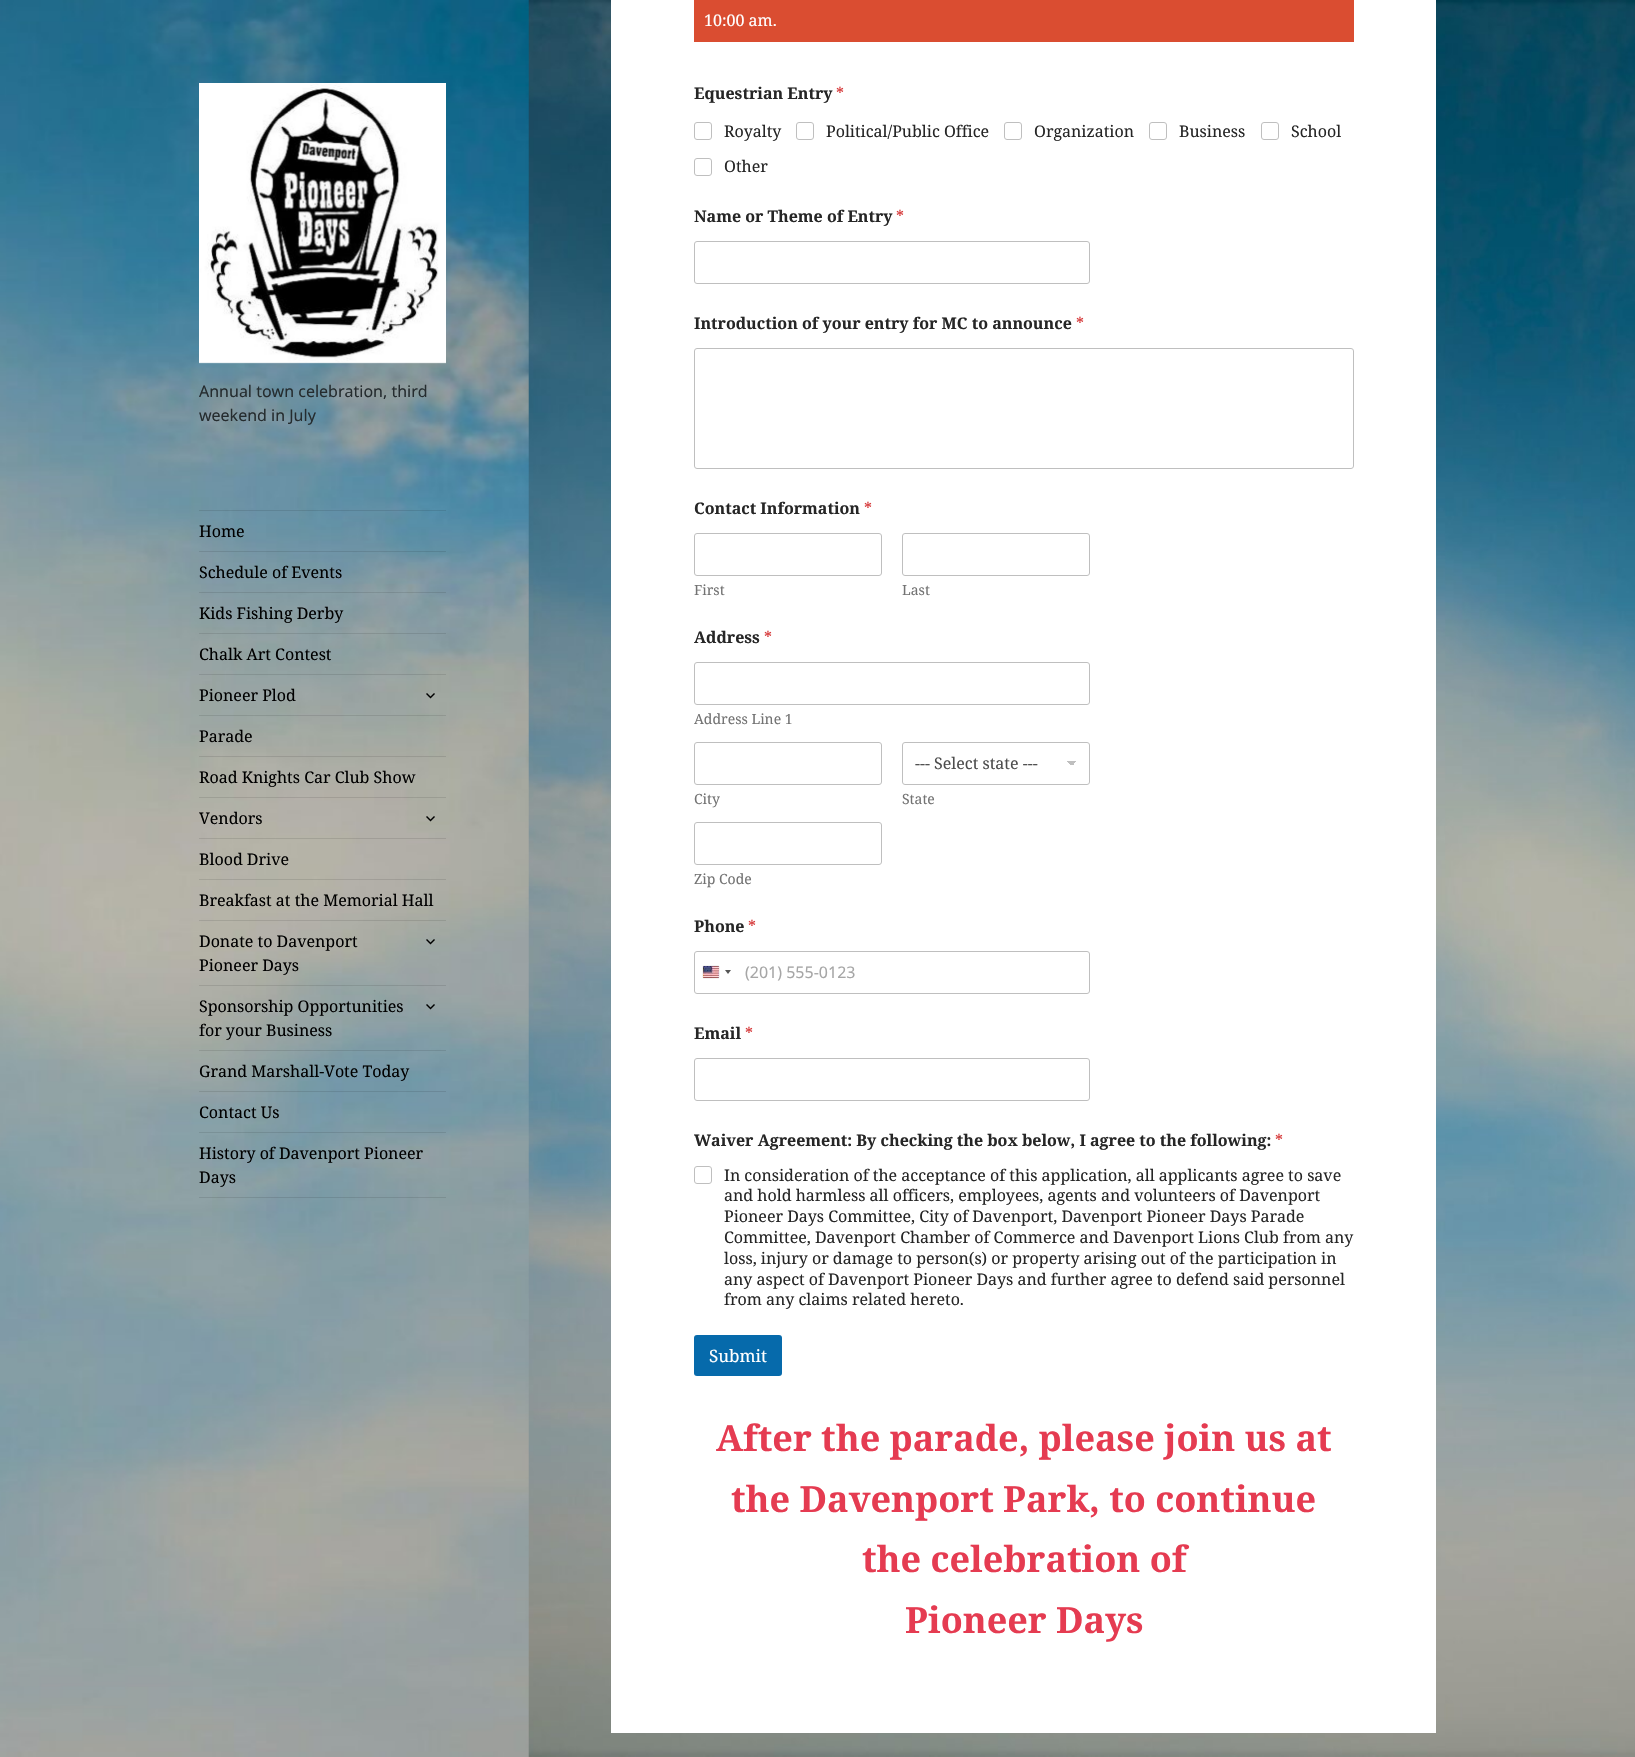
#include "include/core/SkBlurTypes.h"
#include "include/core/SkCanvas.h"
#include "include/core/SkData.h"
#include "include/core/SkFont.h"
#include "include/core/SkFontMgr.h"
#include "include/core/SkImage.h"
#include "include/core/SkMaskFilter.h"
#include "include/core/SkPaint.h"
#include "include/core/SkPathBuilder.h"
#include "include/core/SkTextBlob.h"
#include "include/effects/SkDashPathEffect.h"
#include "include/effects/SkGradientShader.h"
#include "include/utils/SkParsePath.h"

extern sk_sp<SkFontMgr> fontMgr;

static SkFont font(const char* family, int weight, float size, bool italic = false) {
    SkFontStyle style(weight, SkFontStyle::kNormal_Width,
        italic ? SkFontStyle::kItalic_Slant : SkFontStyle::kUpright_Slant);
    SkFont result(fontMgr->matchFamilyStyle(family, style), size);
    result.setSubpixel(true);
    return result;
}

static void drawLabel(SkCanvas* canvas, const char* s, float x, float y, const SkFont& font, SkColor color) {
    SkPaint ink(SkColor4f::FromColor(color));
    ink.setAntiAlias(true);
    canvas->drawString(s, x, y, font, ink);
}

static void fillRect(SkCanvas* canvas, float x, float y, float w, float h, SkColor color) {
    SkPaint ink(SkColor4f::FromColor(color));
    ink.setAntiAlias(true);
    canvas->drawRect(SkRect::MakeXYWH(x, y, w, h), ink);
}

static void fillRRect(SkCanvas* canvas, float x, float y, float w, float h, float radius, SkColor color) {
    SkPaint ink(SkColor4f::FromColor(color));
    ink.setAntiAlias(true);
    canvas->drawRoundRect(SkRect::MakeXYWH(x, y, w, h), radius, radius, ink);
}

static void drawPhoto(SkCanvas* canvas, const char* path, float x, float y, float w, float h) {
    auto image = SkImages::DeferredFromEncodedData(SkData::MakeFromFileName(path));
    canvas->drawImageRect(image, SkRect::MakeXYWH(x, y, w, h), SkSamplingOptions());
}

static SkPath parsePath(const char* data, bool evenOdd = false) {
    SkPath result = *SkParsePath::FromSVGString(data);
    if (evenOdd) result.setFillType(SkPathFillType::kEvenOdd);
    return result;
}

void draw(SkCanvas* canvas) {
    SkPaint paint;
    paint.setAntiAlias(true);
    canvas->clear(0xFFFFFFFF);
    drawPhoto(canvas, "assets/img1.png", 528, 0, 1107, 1757);
    drawPhoto(canvas, "assets/img2.png", 0, 0, 529, 1757);
    drawPhoto(canvas, "assets/img3.png", 199, 83, 247, 281);
    SkFont font1 = font("Noto Sans", 400, 16);
    drawLabel(canvas, "Annual town celebration, third", 199, 397, font1, 0xFF252C2F);
    drawLabel(canvas, "weekend in July", 199, 421, font1, 0xFF252C2F);
    fillRect(canvas, 199, 510, 247, 1, 0x1A000000);
    fillRect(canvas, 199, 1197, 247, 1, 0x1A000000);
    SkFont font2 = font("Noto Serif", 400, 16);
    drawLabel(canvas, "Home", 199, 537, font2, 0xFF000000);
    fillRect(canvas, 199, 551, 247, 1, 0x1A000000);
    drawLabel(canvas, "Schedule of Events", 199, 578, font2, 0xFF000000);
    fillRect(canvas, 199, 592, 247, 1, 0x1A000000);
    drawLabel(canvas, "Kids Fishing Derby", 199, 619, font2, 0xFF000000);
    fillRect(canvas, 199, 633, 247, 1, 0x1A000000);
    drawLabel(canvas, "Chalk Art Contest", 199, 660, font2, 0xFF000000);
    fillRect(canvas, 199, 674, 247, 1, 0x1A000000);
    drawLabel(canvas, "Pioneer Plod", 199, 701, font2, 0xFF000000);
    drawPhoto(canvas, "assets/img4.png", 426, 693, 9, 6);
    fillRect(canvas, 199, 715, 247, 1, 0x1A000000);
    drawLabel(canvas, "Parade", 199, 742, font2, 0xFF000000);
    fillRect(canvas, 199, 756, 247, 1, 0x1A000000);
    drawLabel(canvas, "Road Knights Car Club Show", 199, 783, font2, 0xFF000000);
    fillRect(canvas, 199, 797, 247, 1, 0x1A000000);
    drawLabel(canvas, "Vendors", 199, 824, font2, 0xFF000000);
    drawPhoto(canvas, "assets/img5.png", 426, 816, 9, 6);
    fillRect(canvas, 199, 838, 247, 1, 0x1A000000);
    drawLabel(canvas, "Blood Drive", 199, 865, font2, 0xFF000000);
    fillRect(canvas, 199, 879, 247, 1, 0x1A000000);
    drawLabel(canvas, "Breakfast at the Memorial Hall", 199, 906, font2, 0xFF000000);
    fillRect(canvas, 199, 920, 247, 1, 0x1A000000);
    drawLabel(canvas, "Donate to Davenport", 199, 947, font2, 0xFF000000);
    drawLabel(canvas, "Pioneer Days", 199, 971, font2, 0xFF000000);
    drawPhoto(canvas, "assets/img6.png", 426, 939, 9, 6);
    fillRect(canvas, 199, 985, 247, 1, 0x1A000000);
    drawLabel(canvas, "Sponsorship Opportunities", 199, 1012, font2, 0xFF000000);
    drawLabel(canvas, "for your Business", 199, 1036, font2, 0xFF000000);
    drawPhoto(canvas, "assets/img7.png", 426, 1004, 9, 6);
    fillRect(canvas, 199, 1050, 247, 1, 0x1A000000);
    drawLabel(canvas, "Grand Marshall-Vote Today", 199, 1077, font2, 0xFF000000);
    fillRect(canvas, 199, 1091, 247, 1, 0x1A000000);
    drawLabel(canvas, "Contact Us", 199, 1118, font2, 0xFF000000);
    fillRect(canvas, 199, 1132, 247, 1, 0x1A000000);
    drawLabel(canvas, "History of Davenport Pioneer", 199, 1159, font2, 0xFF000000);
    drawLabel(canvas, "Days", 199, 1183, font2, 0xFF000000);
    fillRect(canvas, 611, 0, 825, 1733, 0xFFFFFFFF);
    fillRect(canvas, 694, 0, 660, 42, 0xFFDA4D31);
    drawLabel(canvas, "10:00 am.", 704, 26, font2, 0xFFFFFFFF);
    SkFont font3 = font("Noto Serif", 700, 16);
    drawLabel(canvas, "Equestrian Entry", 694, 99, font3, 0xFF262626);
    drawLabel(canvas, "*", 836, 99, font2, 0xFFD63637);
    paint.setStroke(true);
    paint.setStrokeWidth(1);
    paint.setColor(0xFFBFBFBF);
    canvas->drawRoundRect(SkRect::MakeXYWH(694.5f, 122.5f, 17, 17), 2.5f, 2.5f, paint);
    drawLabel(canvas, "Royalty", 724, 137, font2, 0xFF262626);
    canvas->drawRoundRect(SkRect::MakeXYWH(796.5f, 122.5f, 17, 17), 2.5f, 2.5f, paint);
    drawLabel(canvas, "Political/Public Office", 826, 137, font2, 0xFF262626);
    canvas->drawRoundRect(SkRect::MakeXYWH(1004.5f, 122.5f, 17, 17), 2.5f, 2.5f, paint);
    drawLabel(canvas, "Organization", 1034, 137, font2, 0xFF262626);
    canvas->drawRoundRect(SkRect::MakeXYWH(1149.5f, 122.5f, 17, 17), 2.5f, 2.5f, paint);
    drawLabel(canvas, "Business", 1179, 137, font2, 0xFF262626);
    canvas->drawRoundRect(SkRect::MakeXYWH(1261.5f, 122.5f, 17, 17), 2.5f, 2.5f, paint);
    drawLabel(canvas, "School", 1291, 137, font2, 0xFF262626);
    canvas->drawRoundRect(SkRect::MakeXYWH(694.5f, 158.5f, 17, 17), 2.5f, 2.5f, paint);
    drawLabel(canvas, "Other", 724, 172, font2, 0xFF262626);
    drawLabel(canvas, "Name or Theme of Entry", 694, 222, font3, 0xFF262626);
    drawLabel(canvas, "*", 896, 222, font2, 0xFFD63637);
    canvas->drawRoundRect(SkRect::MakeXYWH(694.5f, 241.5f, 395, 42), 2.5f, 2.5f, paint);
    drawLabel(canvas, "Introduction of your entry for MC to announce", 694, 329, font3, 0xFF262626);
    drawLabel(canvas, "*", 1076, 329, font2, 0xFFD63637);
    canvas->drawRoundRect(SkRect::MakeXYWH(694.5f, 348.5f, 659, 120), 2.5f, 2.5f, paint);
    drawLabel(canvas, "Contact Information", 694, 514, font3, 0xFF262626);
    drawLabel(canvas, "*", 864, 514, font2, 0xFFD63637);
    canvas->drawRoundRect(SkRect::MakeXYWH(694.5f, 533.5f, 187, 42), 2.5f, 2.5f, paint);
    SkFont font4 = font("Noto Serif", 400, 14);
    drawLabel(canvas, "First", 694, 595, font4, 0xFF737373);
    canvas->drawRoundRect(SkRect::MakeXYWH(902.5f, 533.5f, 187, 42), 2.5f, 2.5f, paint);
    drawLabel(canvas, "Last", 902, 595, font4, 0xFF737373);
    drawLabel(canvas, "Address", 694, 643, font3, 0xFF262626);
    drawLabel(canvas, "*", 764, 643, font2, 0xFFD63637);
    canvas->drawRoundRect(SkRect::MakeXYWH(694.5f, 662.5f, 395, 42), 2.5f, 2.5f, paint);
    drawLabel(canvas, "Address Line 1", 694, 724, font4, 0xFF737373);
    canvas->drawRoundRect(SkRect::MakeXYWH(694.5f, 742.5f, 187, 42), 2.5f, 2.5f, paint);
    drawLabel(canvas, "City", 694, 804, font4, 0xFF737373);
    paint.setStroke(false);
    {
        const SkColor colors[] = {0xFFBFBFBF, 0xFFFFFFFF};
        const float stops[] = {0.5f, 0.5f};
        const SkPoint ends[] = {{1072, 761}, {1077, 766}};
        paint.setShader(SkGradientShader::MakeLinear(ends, colors, stops, 2, SkTileMode::kClamp));
        paint.setAlpha(255);
    }
    canvas->drawRect(SkRect::MakeXYWH(1072, 761, 5, 4), paint);
    {
        const SkColor colors[] = {0xFFFFFFFF, 0xFFBFBFBF};
        const float stops[] = {0.5f, 0.5f};
        const SkPoint ends[] = {{1067, 766}, {1072, 761}};
        paint.setShader(SkGradientShader::MakeLinear(ends, colors, stops, 2, SkTileMode::kClamp));
        paint.setAlpha(255);
    }
    canvas->drawRect(SkRect::MakeXYWH(1067, 761, 5, 4), paint);
    paint.setStroke(true);
    paint.setShader(nullptr);
    paint.setColor(0xFFBFBFBF);
    canvas->drawRoundRect(SkRect::MakeXYWH(902.5f, 742.5f, 187, 42), 2.5f, 2.5f, paint);
    drawLabel(canvas, "--- Select state ---", 915, 769, font2, 0xFF4D4D4D);
    drawLabel(canvas, "State", 902, 804, font4, 0xFF737373);
    canvas->drawRoundRect(SkRect::MakeXYWH(694.5f, 822.5f, 187, 42), 2.5f, 2.5f, paint);
    drawLabel(canvas, "Zip Code", 694, 884, font4, 0xFF737373);
    drawLabel(canvas, "Phone", 694, 932, font3, 0xFF262626);
    drawLabel(canvas, "*", 748, 932, font2, 0xFFD63637);
    canvas->drawRoundRect(SkRect::MakeXYWH(694.5f, 951.5f, 395, 42), 2.5f, 2.5f, paint);
    paint.setStroke(false);
    paint.setColor(0xFF888888);
    paint.setMaskFilter(SkMaskFilter::MakeBlur(kNormal_SkBlurStyle, 0.5f));
    canvas->drawRoundRect(SkRect::MakeXYWH(703, 966, 16, 12), 1, 1, paint);
    paint.setMaskFilter(nullptr);
    drawPhoto(canvas, "assets/img8.png", 703, 966, 16, 12);
    paint.setColor(0xFF555555);
    canvas->drawPath(parsePath("M725 970H731L728 974Z"), paint);
    drawLabel(canvas, "(201) 555-0123", 745, 978, font1, 0xFFA6A6A6);
    drawLabel(canvas, "Email", 694, 1039, font3, 0xFF262626);
    drawLabel(canvas, "*", 745, 1039, font2, 0xFFD63637);
    paint.setStroke(true);
    paint.setColor(0xFFBFBFBF);
    canvas->drawRoundRect(SkRect::MakeXYWH(694.5f, 1058.5f, 395, 42), 2.5f, 2.5f, paint);
    drawLabel(canvas, "Waiver Agreement: By checking the box below, I agree to the following:", 694, 1146, font3, 0xFF262626);
    drawLabel(canvas, "*", 1275, 1146, font2, 0xFFD63637);
    canvas->drawRoundRect(SkRect::MakeXYWH(694.5f, 1166.5f, 17, 17), 2.5f, 2.5f, paint);
    drawLabel(canvas, "In consideration of the acceptance of this application, all applicants agree to save", 724, 1181, font2, 0xFF262626);
    drawLabel(canvas, "and hold harmless all officers, employees, agents and volunteers of Davenport", 724, 1201, font2, 0xFF262626);
    drawLabel(canvas, "Pioneer Days Committee, City of Davenport, Davenport Pioneer Days Parade", 724, 1222, font2, 0xFF262626);
    drawLabel(canvas, "Committee, Davenport Chamber of Commerce and Davenport Lions Club from any", 724, 1243, font2, 0xFF262626);
    drawLabel(canvas, "loss, injury or damage to person(s) or property arising out of the participation in", 724, 1264, font2, 0xFF262626);
    drawLabel(canvas, "any aspect of Davenport Pioneer Days and further agree to defend said personnel", 724, 1285, font2, 0xFF262626);
    drawLabel(canvas, "from any claims related hereto.", 724, 1305, font2, 0xFF262626);
    fillRRect(canvas, 694, 1335, 88, 41, 3, 0xFF066AAB);
    SkFont font5 = font("Noto Serif", 400, 17);
    drawLabel(canvas, "Submit", 709, 1362, font5, 0xFFFFFFFF);
    SkFont font6 = font("Noto Serif", 700, 36);
    drawLabel(canvas, "After the parade, please join us at", 716, 1451, font6, 0xFFE53B51);
    drawLabel(canvas, "the Davenport Park, to continue", 731, 1512, font6, 0xFFE53B51);
    drawLabel(canvas, "the celebration of", 862, 1572, font6, 0xFFE53B51);
    drawLabel(canvas, "Pioneer Days", 905, 1633, font6, 0xFFE53B51);
}
